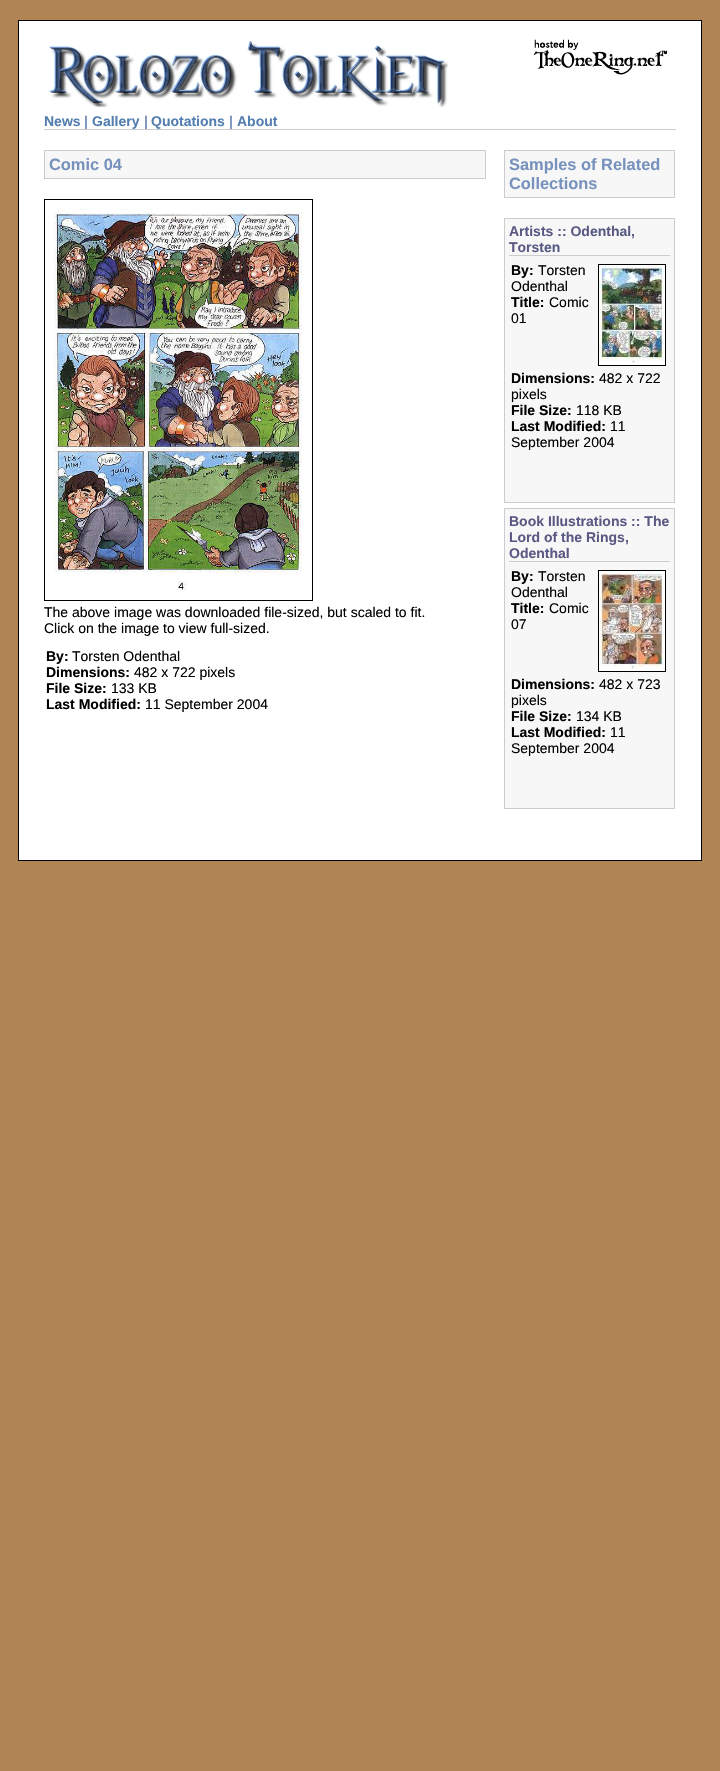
#include "include/core/SkBlurTypes.h"
#include "include/core/SkCanvas.h"
#include "include/core/SkData.h"
#include "include/core/SkFont.h"
#include "include/core/SkFontMgr.h"
#include "include/core/SkImage.h"
#include "include/core/SkMaskFilter.h"
#include "include/core/SkPaint.h"
#include "include/core/SkPathBuilder.h"
#include "include/core/SkTextBlob.h"
#include "include/effects/SkDashPathEffect.h"
#include "include/effects/SkGradientShader.h"
#include "include/utils/SkParsePath.h"

extern sk_sp<SkFontMgr> fontMgr;

static SkFont font(const char* family, int weight, float size, bool italic = false) {
    SkFontStyle style(weight, SkFontStyle::kNormal_Width,
        italic ? SkFontStyle::kItalic_Slant : SkFontStyle::kUpright_Slant);
    SkFont result(fontMgr->matchFamilyStyle(family, style), size);
    result.setSubpixel(true);
    return result;
}

static void drawLabel(SkCanvas* canvas, const char* s, float x, float y, const SkFont& font, SkColor color) {
    SkPaint ink(SkColor4f::FromColor(color));
    ink.setAntiAlias(true);
    canvas->drawString(s, x, y, font, ink);
}

static void fillRect(SkCanvas* canvas, float x, float y, float w, float h, SkColor color) {
    SkPaint ink(SkColor4f::FromColor(color));
    ink.setAntiAlias(true);
    canvas->drawRect(SkRect::MakeXYWH(x, y, w, h), ink);
}

static void drawPhoto(SkCanvas* canvas, const char* path, float x, float y, float w, float h) {
    auto image = SkImages::DeferredFromEncodedData(SkData::MakeFromFileName(path));
    canvas->drawImageRect(image, SkRect::MakeXYWH(x, y, w, h), SkSamplingOptions());
}

void draw(SkCanvas* canvas) {
    SkPaint paint;
    paint.setAntiAlias(true);
    canvas->clear(0xFFB08553);
    paint.setColor(0xFFFFFFFF);
    canvas->drawRect(SkRect::MakeXYWH(18.5f, 20.5f, 683, 840), paint);
    paint.setStroke(true);
    paint.setStrokeWidth(1);
    paint.setColor(0xFF000000);
    canvas->drawRect(SkRect::MakeXYWH(18.5f, 20.5f, 683, 840), paint);
    drawPhoto(canvas, "assets/img1.png", 49, 40, 399, 67);
    drawPhoto(canvas, "assets/img2.png", 533, 39, 134, 36);
    fillRect(canvas, 44, 129, 632, 1, 0xFFCCCCCC);
    SkFont font1 = font("Liberation Sans", 700, 14);
    drawLabel(canvas, "News", 44, 126, font1, 0xFF537EB0);
    drawLabel(canvas, "|", 84, 126, font1, 0xFF7792BC);
    drawLabel(canvas, "Gallery", 92, 126, font1, 0xFF537EB0);
    drawLabel(canvas, "|", 144, 126, font1, 0xFF7792BC);
    drawLabel(canvas, "Quotations", 151, 126, font1, 0xFF537EB0);
    drawLabel(canvas, "|", 229, 126, font1, 0xFF7792BC);
    drawLabel(canvas, "About", 237, 126, font1, 0xFF537EB0);
    paint.setStroke(false);
    paint.setColor(0xFFF7F7F7);
    canvas->drawRect(SkRect::MakeXYWH(44.5f, 150.5f, 441, 28), paint);
    paint.setStroke(true);
    paint.setColor(0xFFCCCCCC);
    canvas->drawRect(SkRect::MakeXYWH(44.5f, 150.5f, 441, 28), paint);
    SkFont font2 = font("Liberation Sans", 700, 16.4f);
    drawLabel(canvas, "Comic 04", 49, 170, font2, 0xFF7792BC);
    paint.setColor(0xFF000000);
    canvas->drawRect(SkRect::MakeXYWH(44.5f, 199.5f, 268, 401), paint);
    drawPhoto(canvas, "assets/img3.png", 54, 209, 248, 381);
    SkFont font3 = font("Liberation Sans", 400, 14);
    drawLabel(canvas, "The above image was downloaded file-sized, but scaled to fit.", 44, 617, font3, 0xFF000000);
    drawLabel(canvas, "Click on the image to view full-sized.", 44, 633, font3, 0xFF000000);
    drawLabel(canvas, "By:", 46, 661, font1, 0xFF000000);
    drawLabel(canvas, "Torsten Odenthal", 72, 661, font3, 0xFF000000);
    drawLabel(canvas, "Dimensions:", 46, 677, font1, 0xFF000000);
    drawLabel(canvas, "482 x 722 pixels", 134, 677, font3, 0xFF000000);
    drawLabel(canvas, "File Size:", 46, 693, font1, 0xFF000000);
    drawLabel(canvas, "133 KB", 111, 693, font3, 0xFF000000);
    drawLabel(canvas, "Last Modified:", 46, 709, font1, 0xFF000000);
    drawLabel(canvas, "11 September 2004", 145, 709, font3, 0xFF000000);
    paint.setStroke(false);
    paint.setColor(0xFFF7F7F7);
    canvas->drawRect(SkRect::MakeXYWH(504.5f, 150.5f, 170, 47), paint);
    paint.setStroke(true);
    paint.setColor(0xFFCCCCCC);
    canvas->drawRect(SkRect::MakeXYWH(504.5f, 150.5f, 170, 47), paint);
    drawLabel(canvas, "Samples of Related", 509, 170, font2, 0xFF7792BC);
    drawLabel(canvas, "Collections", 509, 189, font2, 0xFF7792BC);
    paint.setStroke(false);
    paint.setColor(0xFFF7F7F7);
    canvas->drawRect(SkRect::MakeXYWH(504.5f, 218.5f, 170, 284), paint);
    paint.setStroke(true);
    paint.setColor(0xFFCCCCCC);
    canvas->drawRect(SkRect::MakeXYWH(504.5f, 218.5f, 170, 284), paint);
    fillRect(canvas, 509, 255, 161, 1, 0xFFCCCCCC);
    drawLabel(canvas, "Artists :: Odenthal,", 509, 236, font1, 0xFF595983);
    drawLabel(canvas, "Torsten", 509, 252, font1, 0xFF595983);
    paint.setColor(0xFF000000);
    canvas->drawRect(SkRect::MakeXYWH(598.5f, 264.5f, 67, 101), paint);
    drawPhoto(canvas, "assets/img4.png", 599, 265, 66, 100);
    drawLabel(canvas, "By:", 511, 275, font1, 0xFF000000);
    drawLabel(canvas, "Torsten", 538, 275, font3, 0xFF000000);
    drawLabel(canvas, "Odenthal", 511, 291, font3, 0xFF000000);
    drawLabel(canvas, "Title:", 511, 307, font1, 0xFF000000);
    drawLabel(canvas, "Comic", 549, 307, font3, 0xFF000000);
    drawLabel(canvas, "01", 511, 323, font3, 0xFF000000);
    drawLabel(canvas, "Dimensions:", 511, 383, font1, 0xFF000000);
    drawLabel(canvas, "482 x 722", 599, 383, font3, 0xFF000000);
    drawLabel(canvas, "pixels", 511, 399, font3, 0xFF000000);
    drawLabel(canvas, "File Size:", 511, 415, font1, 0xFF000000);
    drawLabel(canvas, "118 KB", 576, 415, font3, 0xFF000000);
    drawLabel(canvas, "Last Modified:", 511, 431, font1, 0xFF000000);
    drawLabel(canvas, "11", 610, 431, font3, 0xFF000000);
    drawLabel(canvas, "September 2004", 511, 447, font3, 0xFF000000);
    paint.setStroke(false);
    paint.setColor(0xFFF7F7F7);
    canvas->drawRect(SkRect::MakeXYWH(504.5f, 508.5f, 170, 300), paint);
    paint.setStroke(true);
    paint.setColor(0xFFCCCCCC);
    canvas->drawRect(SkRect::MakeXYWH(504.5f, 508.5f, 170, 300), paint);
    fillRect(canvas, 509, 561, 161, 1, 0xFFCCCCCC);
    drawLabel(canvas, "Book Illustrations :: The", 509, 526, font1, 0xFF595983);
    drawLabel(canvas, "Lord of the Rings,", 509, 542, font1, 0xFF595983);
    drawLabel(canvas, "Odenthal", 509, 558, font1, 0xFF595983);
    paint.setColor(0xFF000000);
    canvas->drawRect(SkRect::MakeXYWH(598.5f, 570.5f, 67, 101), paint);
    drawPhoto(canvas, "assets/img5.png", 599, 571, 66, 100);
    drawLabel(canvas, "By:", 511, 581, font1, 0xFF000000);
    drawLabel(canvas, "Torsten", 538, 581, font3, 0xFF000000);
    drawLabel(canvas, "Odenthal", 511, 597, font3, 0xFF000000);
    drawLabel(canvas, "Title:", 511, 613, font1, 0xFF000000);
    drawLabel(canvas, "Comic", 549, 613, font3, 0xFF000000);
    drawLabel(canvas, "07", 511, 629, font3, 0xFF000000);
    drawLabel(canvas, "Dimensions:", 511, 689, font1, 0xFF000000);
    drawLabel(canvas, "482 x 723", 599, 689, font3, 0xFF000000);
    drawLabel(canvas, "pixels", 511, 705, font3, 0xFF000000);
    drawLabel(canvas, "File Size:", 511, 721, font1, 0xFF000000);
    drawLabel(canvas, "134 KB", 576, 721, font3, 0xFF000000);
    drawLabel(canvas, "Last Modified:", 511, 737, font1, 0xFF000000);
    drawLabel(canvas, "11", 610, 737, font3, 0xFF000000);
    drawLabel(canvas, "September 2004", 511, 753, font3, 0xFF000000);
}
